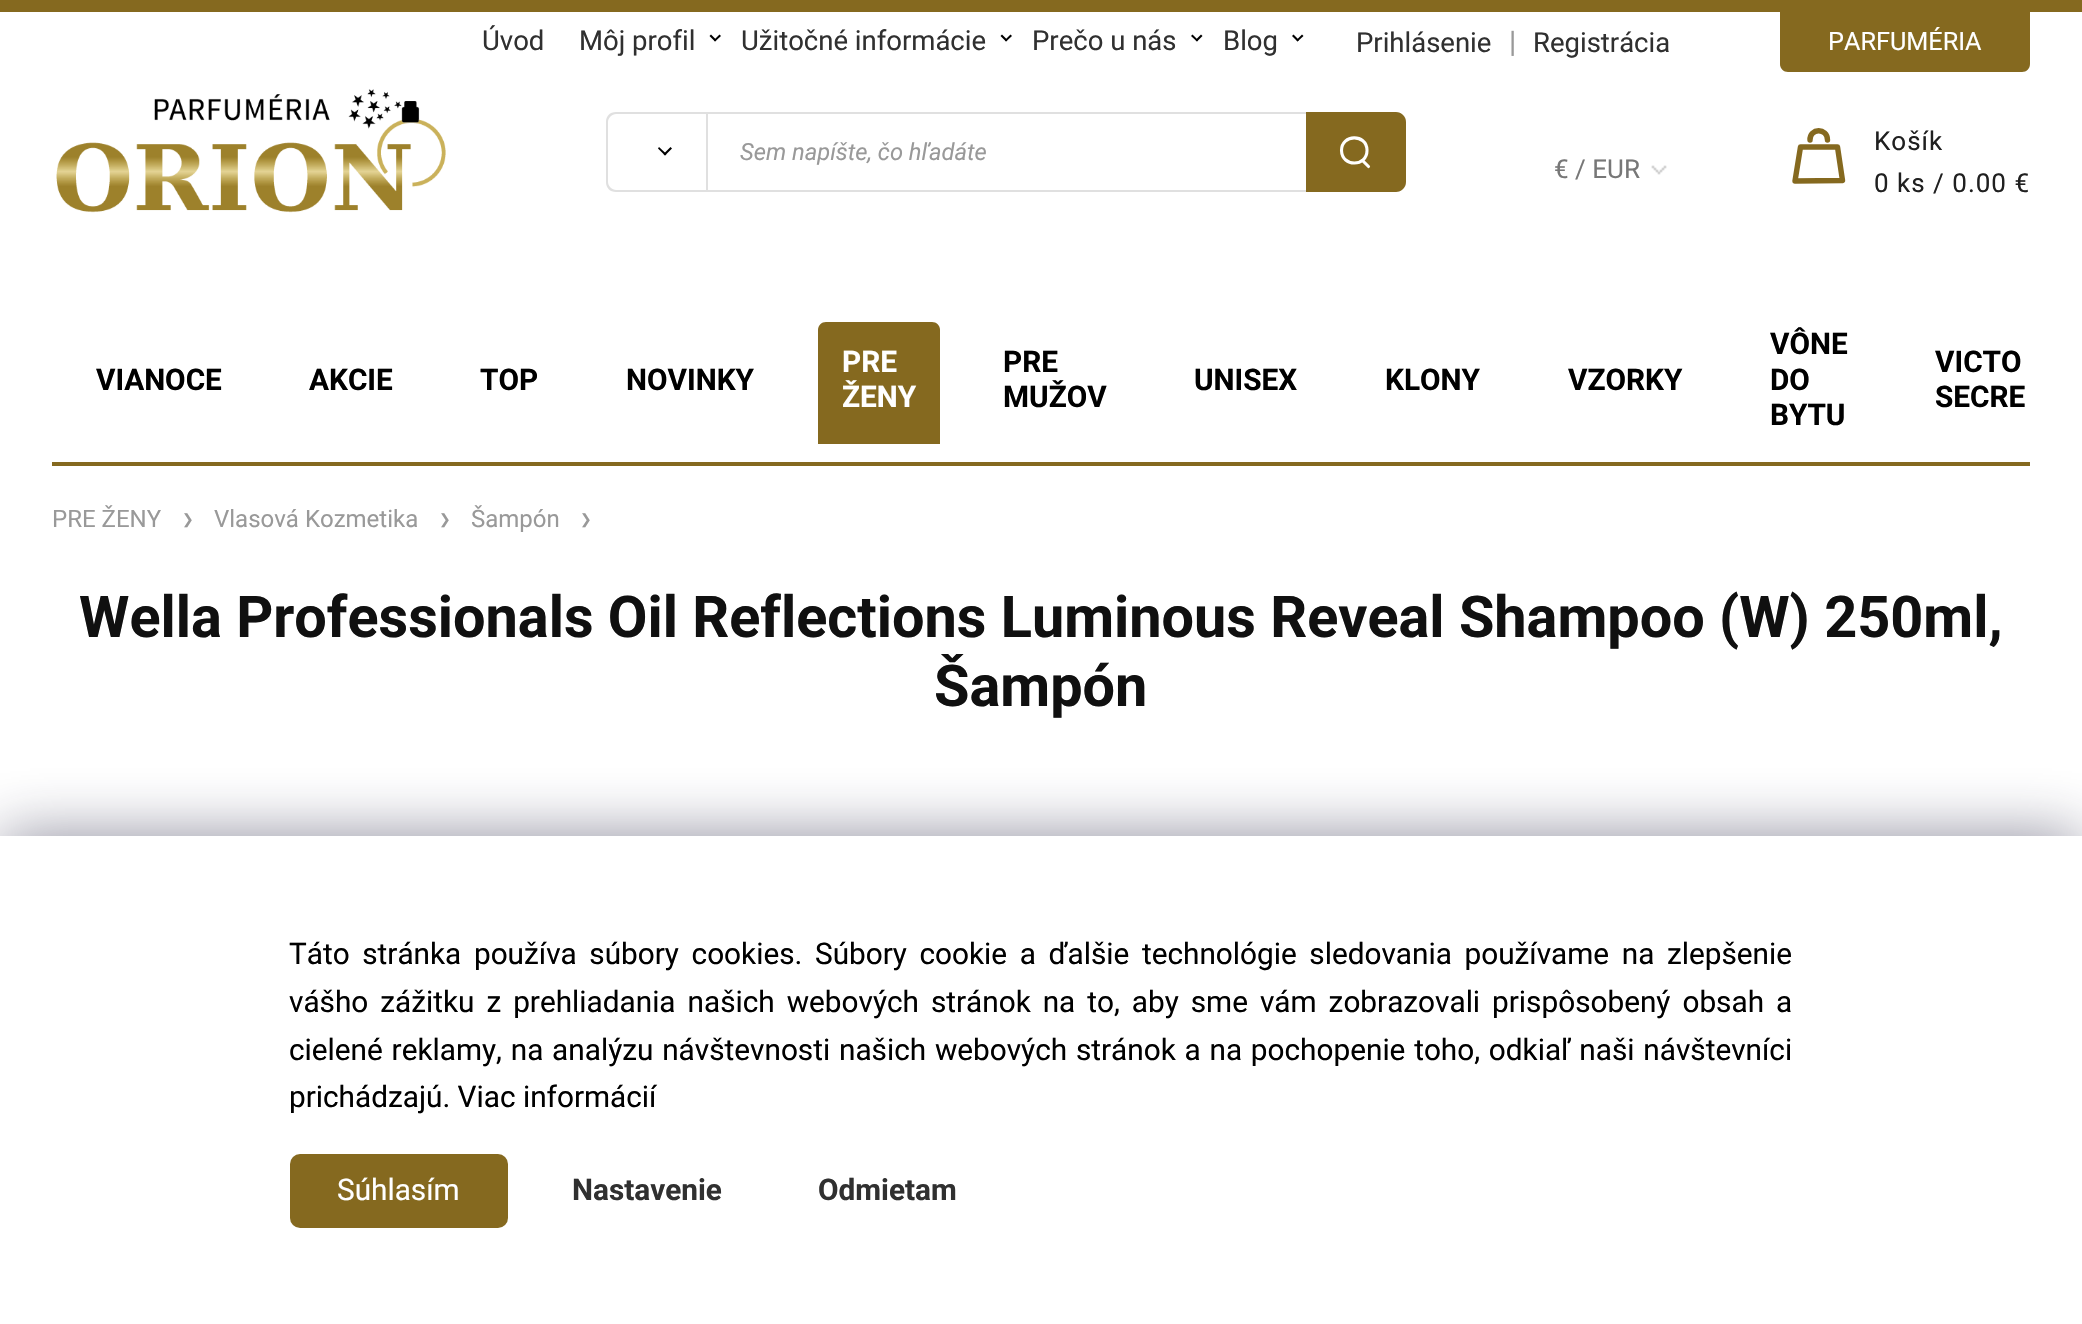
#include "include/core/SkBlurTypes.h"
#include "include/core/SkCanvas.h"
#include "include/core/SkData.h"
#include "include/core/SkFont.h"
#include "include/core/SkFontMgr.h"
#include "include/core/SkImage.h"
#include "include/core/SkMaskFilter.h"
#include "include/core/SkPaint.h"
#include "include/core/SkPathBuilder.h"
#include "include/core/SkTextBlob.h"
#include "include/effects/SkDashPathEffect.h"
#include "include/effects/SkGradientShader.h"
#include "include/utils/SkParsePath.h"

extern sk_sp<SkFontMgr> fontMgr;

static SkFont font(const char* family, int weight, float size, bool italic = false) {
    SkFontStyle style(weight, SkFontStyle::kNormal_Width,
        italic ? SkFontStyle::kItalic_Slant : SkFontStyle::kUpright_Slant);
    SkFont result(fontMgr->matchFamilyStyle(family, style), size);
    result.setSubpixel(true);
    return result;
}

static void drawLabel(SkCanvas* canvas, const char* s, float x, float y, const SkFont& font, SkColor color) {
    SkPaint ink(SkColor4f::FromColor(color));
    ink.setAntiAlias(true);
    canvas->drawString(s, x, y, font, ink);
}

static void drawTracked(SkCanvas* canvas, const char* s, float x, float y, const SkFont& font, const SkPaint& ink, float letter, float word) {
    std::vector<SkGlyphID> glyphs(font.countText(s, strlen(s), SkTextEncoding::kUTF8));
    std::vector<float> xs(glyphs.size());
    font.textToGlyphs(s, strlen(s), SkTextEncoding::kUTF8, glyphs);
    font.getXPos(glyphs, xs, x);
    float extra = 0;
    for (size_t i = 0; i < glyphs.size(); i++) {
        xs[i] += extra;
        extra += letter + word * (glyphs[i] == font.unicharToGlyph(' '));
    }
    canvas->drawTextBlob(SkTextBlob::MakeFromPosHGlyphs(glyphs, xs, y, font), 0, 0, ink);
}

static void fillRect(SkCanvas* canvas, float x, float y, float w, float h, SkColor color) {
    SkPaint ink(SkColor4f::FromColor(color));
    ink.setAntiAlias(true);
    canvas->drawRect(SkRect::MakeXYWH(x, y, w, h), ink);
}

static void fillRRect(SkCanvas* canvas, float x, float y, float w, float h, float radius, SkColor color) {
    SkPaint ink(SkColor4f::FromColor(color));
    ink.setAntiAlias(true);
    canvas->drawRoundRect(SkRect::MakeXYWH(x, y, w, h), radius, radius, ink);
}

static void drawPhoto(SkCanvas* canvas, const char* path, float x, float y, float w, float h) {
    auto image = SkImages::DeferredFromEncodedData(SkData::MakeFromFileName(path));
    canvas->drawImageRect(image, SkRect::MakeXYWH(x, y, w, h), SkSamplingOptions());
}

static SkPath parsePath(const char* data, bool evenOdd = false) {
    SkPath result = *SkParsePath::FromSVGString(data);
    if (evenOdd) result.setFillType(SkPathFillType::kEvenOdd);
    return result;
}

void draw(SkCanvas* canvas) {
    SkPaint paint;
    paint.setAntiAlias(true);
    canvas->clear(0xFFFFFFFF);
    fillRect(canvas, 0, 0, 2082, 12, 0xFF85691F);
    SkFont font1 = font("Roboto", 400, 27.5f);
    drawLabel(canvas, "Úvod", 482, 50, font1, 0xFF303030);
    drawLabel(canvas, "Môj profil", 579, 50, font1, 0xFF303030);
    paint.setColor(0xFF000000);
    canvas->drawPath(parsePath("M714 40L719.5 34.5L721 36L715 41.5Z"), paint);
    canvas->drawPath(parsePath("M709.5 36L711 34.5L716.5 40L715 41.5Z"), paint);
    drawLabel(canvas, "Užitočné informácie", 741, 50, font1, 0xFF303030);
    canvas->drawPath(parsePath("M1005 40L1010.5 34.5L1012 36L1006 41.5Z"), paint);
    canvas->drawPath(parsePath("M1000.5 36L1002 34.5L1007.5 40L1006 41.5Z"), paint);
    drawLabel(canvas, "Prečo u nás", 1032, 50, font1, 0xFF303030);
    canvas->drawPath(parsePath("M1195.5 40L1201 34.5L1202.5 36L1197 41.5Z"), paint);
    canvas->drawPath(parsePath("M1191 36L1192.5 34.5L1198 40L1197 41.5Z"), paint);
    drawLabel(canvas, "Blog", 1223, 50, font1, 0xFF303030);
    canvas->drawPath(parsePath("M1296.5 40L1302 34.5L1303.5 36L1297.5 41.5Z"), paint);
    canvas->drawPath(parsePath("M1292 36L1293.5 34.5L1299 40L1297.5 41.5Z"), paint);
    drawLabel(canvas, "Prihlásenie", 1356, 52, font1, 0xFF303030);
    SkFont font2 = font("Roboto", 400, 29.75f);
    drawLabel(canvas, "|", 1509, 52, font2, 0xFF999999);
    drawLabel(canvas, "Registrácia", 1533, 52, font1, 0xFF303030);
    paint.setColor(0xFF85691F);
    canvas->drawPath(parsePath("M1780 12H2030V64C2030 68.5 2026.5 72 2022 72H1788C1783.5 72 1780 68.5 1780 64Z"), paint);
    SkFont font3 = font("Roboto", 400, 25.25f);
    drawLabel(canvas, "PARFUMÉRIA", 1828, 50, font3, 0xFFFFFFFF);
    drawPhoto(canvas, "assets/img1.png", 56, 89, 390, 124);
    paint.setColor(0xFFE0E0E0);
    canvas->drawPath(parsePath("M616 112H706V192H616C610 192 606 188 606 182V122C606 116 610 112 616 112ZM616 114H706V190H616C612 190 608 186 608 182V122C608 118 612 114 616 114Z", true), paint);
    paint.setColor(0xFF000000);
    canvas->drawPath(parsePath("M663.5 154L670.5 147L672 148.5L665 155.5Z"), paint);
    canvas->drawPath(parsePath("M658 148.5L659 147L666.5 154L665 155.5Z"), paint);
    fillRect(canvas, 706, 112, 600, 2, 0xFFE0E0E0);
    fillRect(canvas, 706, 190, 600, 2, 0xFFE0E0E0);
    fillRect(canvas, 706, 112, 2, 80, 0xFFE0E0E0);
    SkFont font4 = font("Roboto", 400, 23.75f, true);
    drawLabel(canvas, "Sem napíšte, čo hľadáte", 740, 160, font4, 0xFF999999);
    paint.setColor(0xFF85691F);
    canvas->drawPath(parsePath("M1306 112H1396C1401.5 112 1406 116.5 1406 122V182C1406 187.5 1401.5 192 1396 192H1306Z"), paint);
    paint.setStroke(true);
    paint.setStrokeWidth(3.1f);
    paint.setStrokeCap(SkPaint::kRound_Cap);
    paint.setColor(0xFFFFFFFF);
    canvas->drawPath(parsePath("M1362.5 160.5L1368.5 166.5"), paint);
    paint.setStrokeJoin(SkPaint::kRound_Join);
    canvas->drawPath(parsePath("M1367 150.5C1367 167 1342 167.5 1341.5 150.5C1341.5 134 1366.5 133.5 1367 150"), paint);
    paint.setStrokeWidth(5.4f);
    paint.setStrokeJoin(SkPaint::kMiter_Join);
    paint.setColor(0xFF85691F);
    canvas->drawPath(parsePath("M1810 140C1809.5 128 1827.5 127.5 1827.5 140"), paint);
    paint.setStrokeJoin(SkPaint::kRound_Join);
    canvas->drawPath(parsePath("M1800.5 147H1837.5L1842.5 180.5L1795 181Z"), paint);
    SkFont font5 = font("Roboto", 400, 26);
    paint.setStroke(false);
    paint.setColor(0xFF202020);
    drawTracked(canvas, "Košík", 1874, 150, font5, paint, 1, 0);
    drawTracked(canvas, "0 ks / 0.00 €", 1874, 192, font5, paint, 1, 0);
    drawPhoto(canvas, "assets/img2.png", 1651, 165, 16, 10);
    drawLabel(canvas, "€ / EUR", 1554, 178, font5, 0xFF777777);
    fillRect(canvas, 52, 462, 1978, 4, 0xFF85691F);
    SkFont font6 = font("Roboto", 700, 29.75f);
    drawLabel(canvas, "VIANOCE", 96, 390, font6, 0xFF000000);
    drawLabel(canvas, "AKCIE", 309, 390, font6, 0xFF000000);
    drawLabel(canvas, "TOP", 480, 390, font6, 0xFF000000);
    drawLabel(canvas, "NOVINKY", 626, 390, font6, 0xFF000000);
    paint.setColor(0xFF85691F);
    canvas->drawPath(parsePath("M826 322H932C936.5 322 940 325.5 940 330V444H818V330C818 325.5 821.5 322 826 322Z"), paint);
    drawLabel(canvas, "PRE", 842, 372, font6, 0xFFFFFFFF);
    drawLabel(canvas, "ŽENY", 842, 407, font6, 0xFFFFFFFF);
    drawLabel(canvas, "PRE", 1003, 372, font6, 0xFF000000);
    drawLabel(canvas, "MUŽOV", 1003, 407, font6, 0xFF000000);
    drawLabel(canvas, "UNISEX", 1194, 390, font6, 0xFF000000);
    drawLabel(canvas, "KLONY", 1385, 390, font6, 0xFF000000);
    drawLabel(canvas, "VZORKY", 1568, 390, font6, 0xFF000000);
    drawLabel(canvas, "VÔNE", 1770, 354, font6, 0xFF000000);
    drawLabel(canvas, "DO", 1770, 390, font6, 0xFF000000);
    drawLabel(canvas, "BYTU", 1770, 425, font6, 0xFF000000);
    drawLabel(canvas, "VICTO", 1935, 372, font6, 0xFF000000);
    drawLabel(canvas, "SECRE", 1935, 407, font6, 0xFF000000);
    SkFont font7 = font("Roboto", 400, 24);
    drawLabel(canvas, "PRE ŽENY", 52, 527, font7, 0xFF999999);
    SkFont font8 = font("DejaVu Sans", 400, 14);
    drawLabel(canvas, "❯", 182, 524, font8, 0xFF999999);
    drawLabel(canvas, "Vlasová Kozmetika", 214, 527, font7, 0xFF999999);
    drawLabel(canvas, "❯", 439, 524, font8, 0xFF999999);
    drawLabel(canvas, "Šampón", 471, 527, font7, 0xFF999999);
    drawLabel(canvas, "❯", 580, 524, font8, 0xFF999999);
    SkFont font9 = font("Roboto", 700, 57.6f);
    drawLabel(canvas, "Wella Professionals Oil Reflections Luminous Reveal Shampoo (W) 250ml,", 79, 637, font9, 0xFF101010);
    drawLabel(canvas, "Šampón", 934, 706, font9, 0xFF101010);
    paint.setColor(0x801B1939);
    paint.setMaskFilter(SkMaskFilter::MakeBlur(kNormal_SkBlurStyle, 30));
    canvas->drawRect(SkRect::MakeXYWH(0, 836, 2082, 488), paint);
    paint.setMaskFilter(nullptr);
    fillRect(canvas, 0, 836, 2082, 488, 0xFFFFFFFF);
    paint.setColor(0xFF000000);
    drawTracked(canvas, "Táto stránka používa súbory cookies. Súbory cookie a ďalšie technológie sledovania používame na zlepšenie", 289, 964, font2, paint, 0, 5.25f);
    drawTracked(canvas, "vášho zážitku z prehliadania našich webových stránok na to, aby sme vám zobrazovali prispôsobený obsah a", 289, 1012, font2, paint, 0, 4.6f);
    drawTracked(canvas, "cielené reklamy, na analýzu návštevnosti našich webových stránok a na pochopenie toho, odkiaľ naši návštevníci", 289, 1060, font2, paint, 0, 1.4f);
    drawLabel(canvas, "prichádzajú. Viac informácií", 289, 1107, font2, 0xFF000000);
    fillRRect(canvas, 290, 1154, 218, 74, 10, 0xFF85691F);
    drawLabel(canvas, "Súhlasím", 337, 1200, font2, 0xFFFFFFFF);
    drawLabel(canvas, "Nastavenie", 572, 1200, font6, 0xFF303030);
    drawLabel(canvas, "Odmietam", 818, 1200, font6, 0xFF303030);
}
